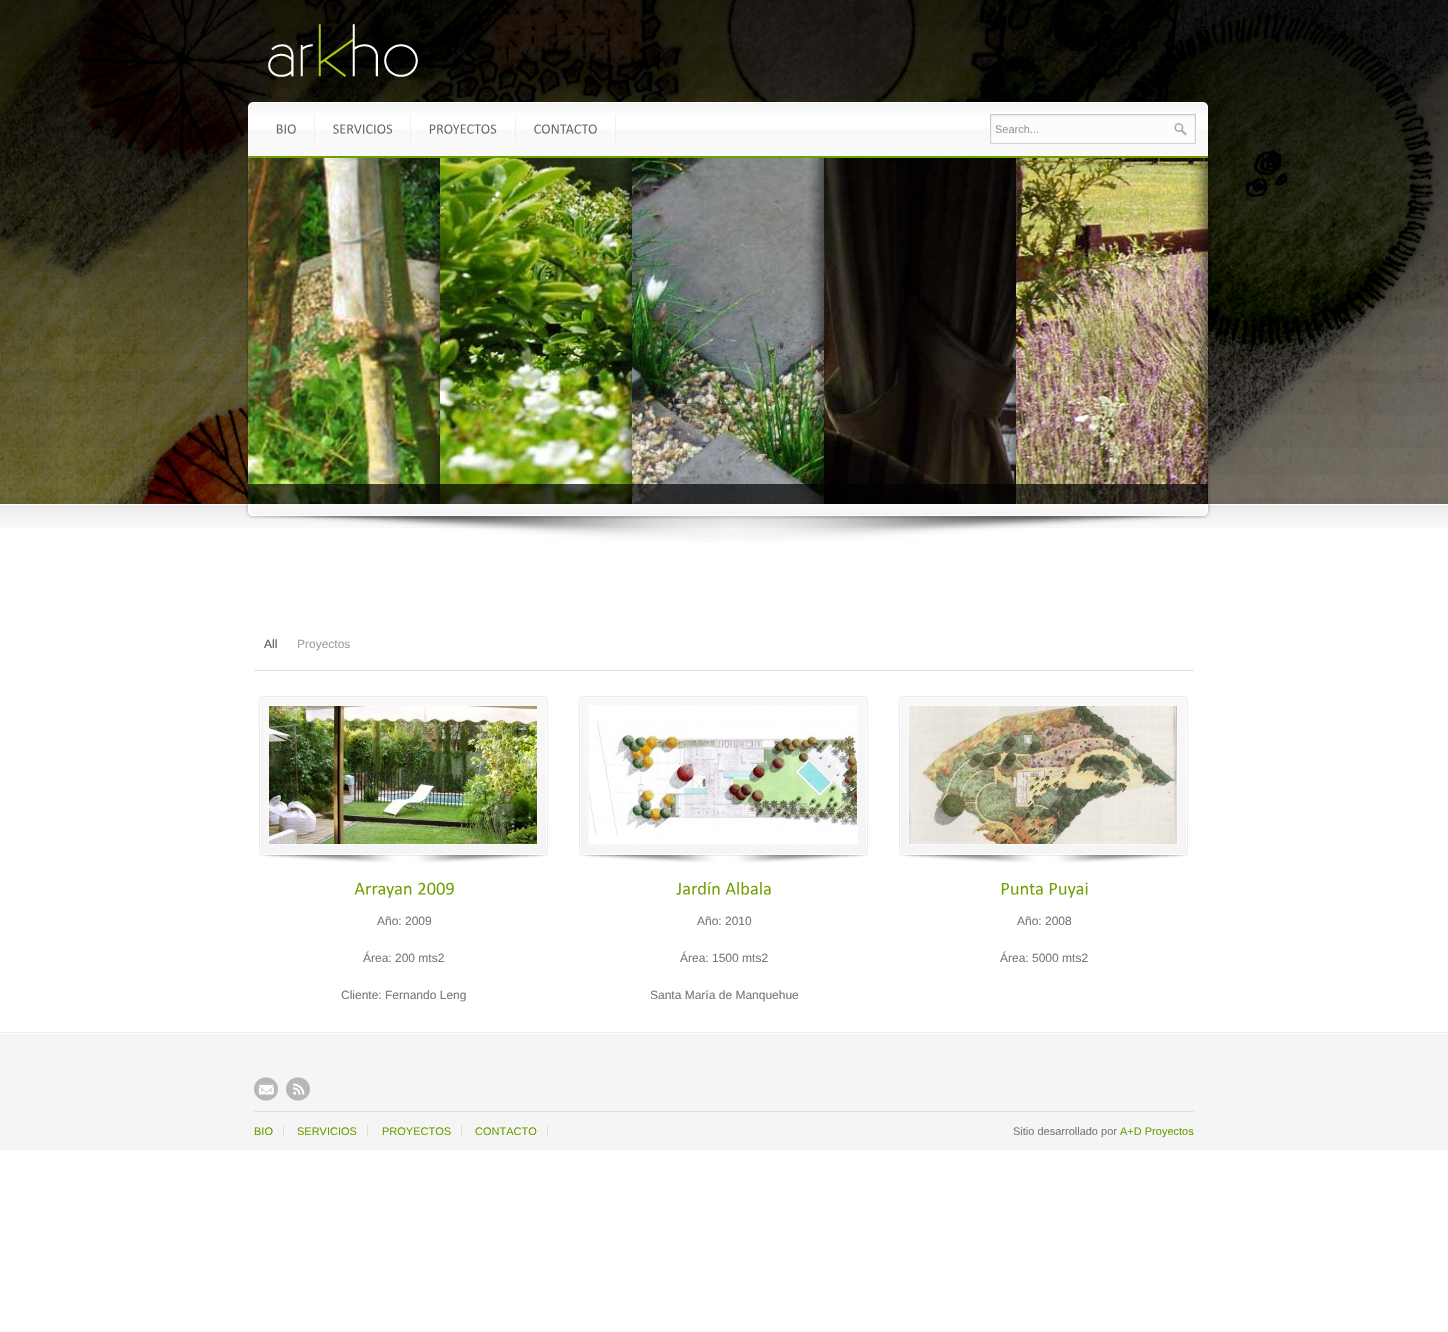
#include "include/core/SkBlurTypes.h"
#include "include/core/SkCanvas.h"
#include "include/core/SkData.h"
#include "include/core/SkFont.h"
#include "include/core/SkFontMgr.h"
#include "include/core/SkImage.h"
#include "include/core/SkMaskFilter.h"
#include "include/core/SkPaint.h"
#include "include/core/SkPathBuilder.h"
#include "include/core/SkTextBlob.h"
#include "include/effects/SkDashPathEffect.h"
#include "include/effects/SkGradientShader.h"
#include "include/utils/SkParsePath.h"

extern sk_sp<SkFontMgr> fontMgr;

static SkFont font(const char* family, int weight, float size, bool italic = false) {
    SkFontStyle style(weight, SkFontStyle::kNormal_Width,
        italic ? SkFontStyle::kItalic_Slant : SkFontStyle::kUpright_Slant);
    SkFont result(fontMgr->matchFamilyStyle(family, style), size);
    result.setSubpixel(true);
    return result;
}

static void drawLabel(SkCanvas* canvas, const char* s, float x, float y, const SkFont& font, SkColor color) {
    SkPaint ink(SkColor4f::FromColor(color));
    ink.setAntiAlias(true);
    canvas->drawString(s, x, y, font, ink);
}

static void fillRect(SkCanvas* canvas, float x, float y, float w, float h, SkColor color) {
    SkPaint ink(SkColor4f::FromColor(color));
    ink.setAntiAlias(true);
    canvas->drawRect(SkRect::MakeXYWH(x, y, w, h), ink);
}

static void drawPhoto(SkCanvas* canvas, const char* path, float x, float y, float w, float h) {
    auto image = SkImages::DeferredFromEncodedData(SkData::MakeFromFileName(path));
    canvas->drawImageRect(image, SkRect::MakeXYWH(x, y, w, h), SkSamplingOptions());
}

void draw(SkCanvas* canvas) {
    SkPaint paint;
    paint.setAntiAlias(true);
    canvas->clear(0xFFFFFFFF);
    drawPhoto(canvas, "assets/img1.png", 0, 0, 1448, 504);
    drawPhoto(canvas, "assets/img2.png", 268, 24, 150, 53);
    drawPhoto(canvas, "assets/img3.png", 248, 101, 960, 13);
    drawPhoto(canvas, "assets/img4.png", 246, 114, 964, 390);
    fillRect(canvas, 248, 129, 960, 27, 0xFFF9F9F9);
    drawPhoto(canvas, "assets/img5.png", 314, 114, 1, 30);
    drawPhoto(canvas, "assets/img6.png", 276, 124, 20, 10);
    drawPhoto(canvas, "assets/img5.png", 410, 114, 1, 30);
    drawPhoto(canvas, "assets/img7.png", 333, 124, 60, 10);
    drawPhoto(canvas, "assets/img5.png", 515, 114, 1, 30);
    drawPhoto(canvas, "assets/img8.png", 429, 124, 68, 10);
    drawPhoto(canvas, "assets/img5.png", 615, 114, 1, 30);
    drawPhoto(canvas, "assets/img9.png", 534, 124, 63, 10);
    drawPhoto(canvas, "assets/img10.png", 990, 114, 181, 30);
    SkFont font1 = font("Liberation Sans", 400, 11);
    drawLabel(canvas, "Search...", 995, 133, font1, 0xFF999999);
    drawPhoto(canvas, "assets/img11.png", 1171, 114, 25, 30);
    fillRect(canvas, 248, 156, 960, 2, 0xFF6DA000);
    drawPhoto(canvas, "assets/img12.png", 248, 158, 192, 346);
    fillRect(canvas, 248, 484, 192, 20, 0xB3000000);
    drawPhoto(canvas, "assets/img13.png", 423, 158, 17, 346);
    drawPhoto(canvas, "assets/img14.png", 440, 158, 192, 346);
    fillRect(canvas, 440, 484, 192, 20, 0xB3000000);
    drawPhoto(canvas, "assets/img15.png", 615, 158, 17, 346);
    drawPhoto(canvas, "assets/img16.png", 632, 158, 192, 346);
    fillRect(canvas, 632, 484, 192, 20, 0xB3000000);
    drawPhoto(canvas, "assets/img17.png", 807, 158, 17, 346);
    drawPhoto(canvas, "assets/img18.png", 824, 158, 192, 346);
    fillRect(canvas, 824, 484, 192, 20, 0xB3000000);
    drawPhoto(canvas, "assets/img19.png", 1001, 158, 15, 337);
    drawPhoto(canvas, "assets/img20.png", 1016, 158, 192, 346);
    fillRect(canvas, 1016, 484, 192, 20, 0xB3000000);
    drawPhoto(canvas, "assets/img21.png", 1191, 158, 17, 346);
    drawPhoto(canvas, "assets/img24.png", 0, 505, 1448, 23);
    drawPhoto(canvas, "assets/img22.png", 245, 504, 966, 15);
    drawPhoto(canvas, "assets/img23.png", 250, 516, 956, 26);
    fillRect(canvas, 254, 670, 940, 1, 0xFFDEDEDE);
    SkFont font2 = font("Liberation Sans", 400, 12);
    drawLabel(canvas, "All", 264, 648, font2, 0xFF555555);
    drawLabel(canvas, "Proyectos", 297, 648, font2, 0xFFA1A2A2);
    drawPhoto(canvas, "assets/img25.png", 259, 696, 289, 167);
    paint.setStroke(true);
    paint.setStrokeWidth(1);
    paint.setColor(0xFFFAFAFA);
    canvas->drawRect(SkRect::MakeXYWH(268.5f, 705.5f, 269, 139), paint);
    drawPhoto(canvas, "assets/img26.png", 269, 706, 268, 138);
    drawPhoto(canvas, "assets/img27.png", 354, 882, 58, 16);
    drawPhoto(canvas, "assets/img28.png", 418, 882, 36, 13);
    drawLabel(canvas, "Año: 2009", 377, 925, font2, 0xFF787878);
    drawLabel(canvas, "Área: 200 mts2", 363, 962, font2, 0xFF787878);
    drawLabel(canvas, "Cliente: Fernando Leng", 341, 999, font2, 0xFF787878);
    drawPhoto(canvas, "assets/img25.png", 579, 696, 289, 167);
    canvas->drawRect(SkRect::MakeXYWH(588.5f, 705.5f, 269, 139), paint);
    drawPhoto(canvas, "assets/img29.png", 589, 706, 268, 138);
    drawPhoto(canvas, "assets/img30.png", 676, 882, 44, 13);
    drawPhoto(canvas, "assets/img31.png", 725, 882, 46, 13);
    drawLabel(canvas, "Año: 2010", 697, 925, font2, 0xFF787878);
    drawLabel(canvas, "Área: 1500 mts2", 680, 962, font2, 0xFF787878);
    drawLabel(canvas, "Santa María de Manquehue", 650, 999, font2, 0xFF787878);
    drawPhoto(canvas, "assets/img25.png", 899, 696, 289, 167);
    canvas->drawRect(SkRect::MakeXYWH(908.5f, 705.5f, 269, 139), paint);
    drawPhoto(canvas, "assets/img32.png", 909, 706, 268, 138);
    drawPhoto(canvas, "assets/img33.png", 1001, 883, 42, 12);
    drawPhoto(canvas, "assets/img34.png", 1049, 882, 39, 16);
    drawLabel(canvas, "Año: 2008", 1017, 925, font2, 0xFF787878);
    drawLabel(canvas, "Área: 5000 mts2", 1000, 962, font2, 0xFF787878);
    fillRect(canvas, 0, 1034, 1448, 116, 0xFFF5F5F5);
    drawPhoto(canvas, "assets/img35.png", 0, 1032, 1448, 2);
    drawPhoto(canvas, "assets/img36.png", 254, 1077, 24, 24);
    drawPhoto(canvas, "assets/img37.png", 286, 1077, 24, 24);
    fillRect(canvas, 254, 1111, 940, 1, 0xFFDEDEDE);
    drawLabel(canvas, "BIO", 254, 1135, font1, 0xFF6DA000);
    fillRect(canvas, 283, 1125, 1, 12, 0xFFDEDEDE);
    drawLabel(canvas, "SERVICIOS", 297, 1135, font1, 0xFF6DA000);
    fillRect(canvas, 367, 1125, 1, 12, 0xFFDEDEDE);
    drawLabel(canvas, "PROYECTOS", 382, 1135, font1, 0xFF6DA000);
    fillRect(canvas, 461, 1125, 1, 12, 0xFFDEDEDE);
    drawLabel(canvas, "CONTACTO", 475, 1135, font1, 0xFF6DA000);
    fillRect(canvas, 547, 1125, 1, 12, 0xFFDEDEDE);
    drawLabel(canvas, "Sitio desarrollado por", 1013, 1135, font1, 0xFF787878);
    drawLabel(canvas, "A+D Proyectos", 1120, 1135, font1, 0xFF6DA000);
}
